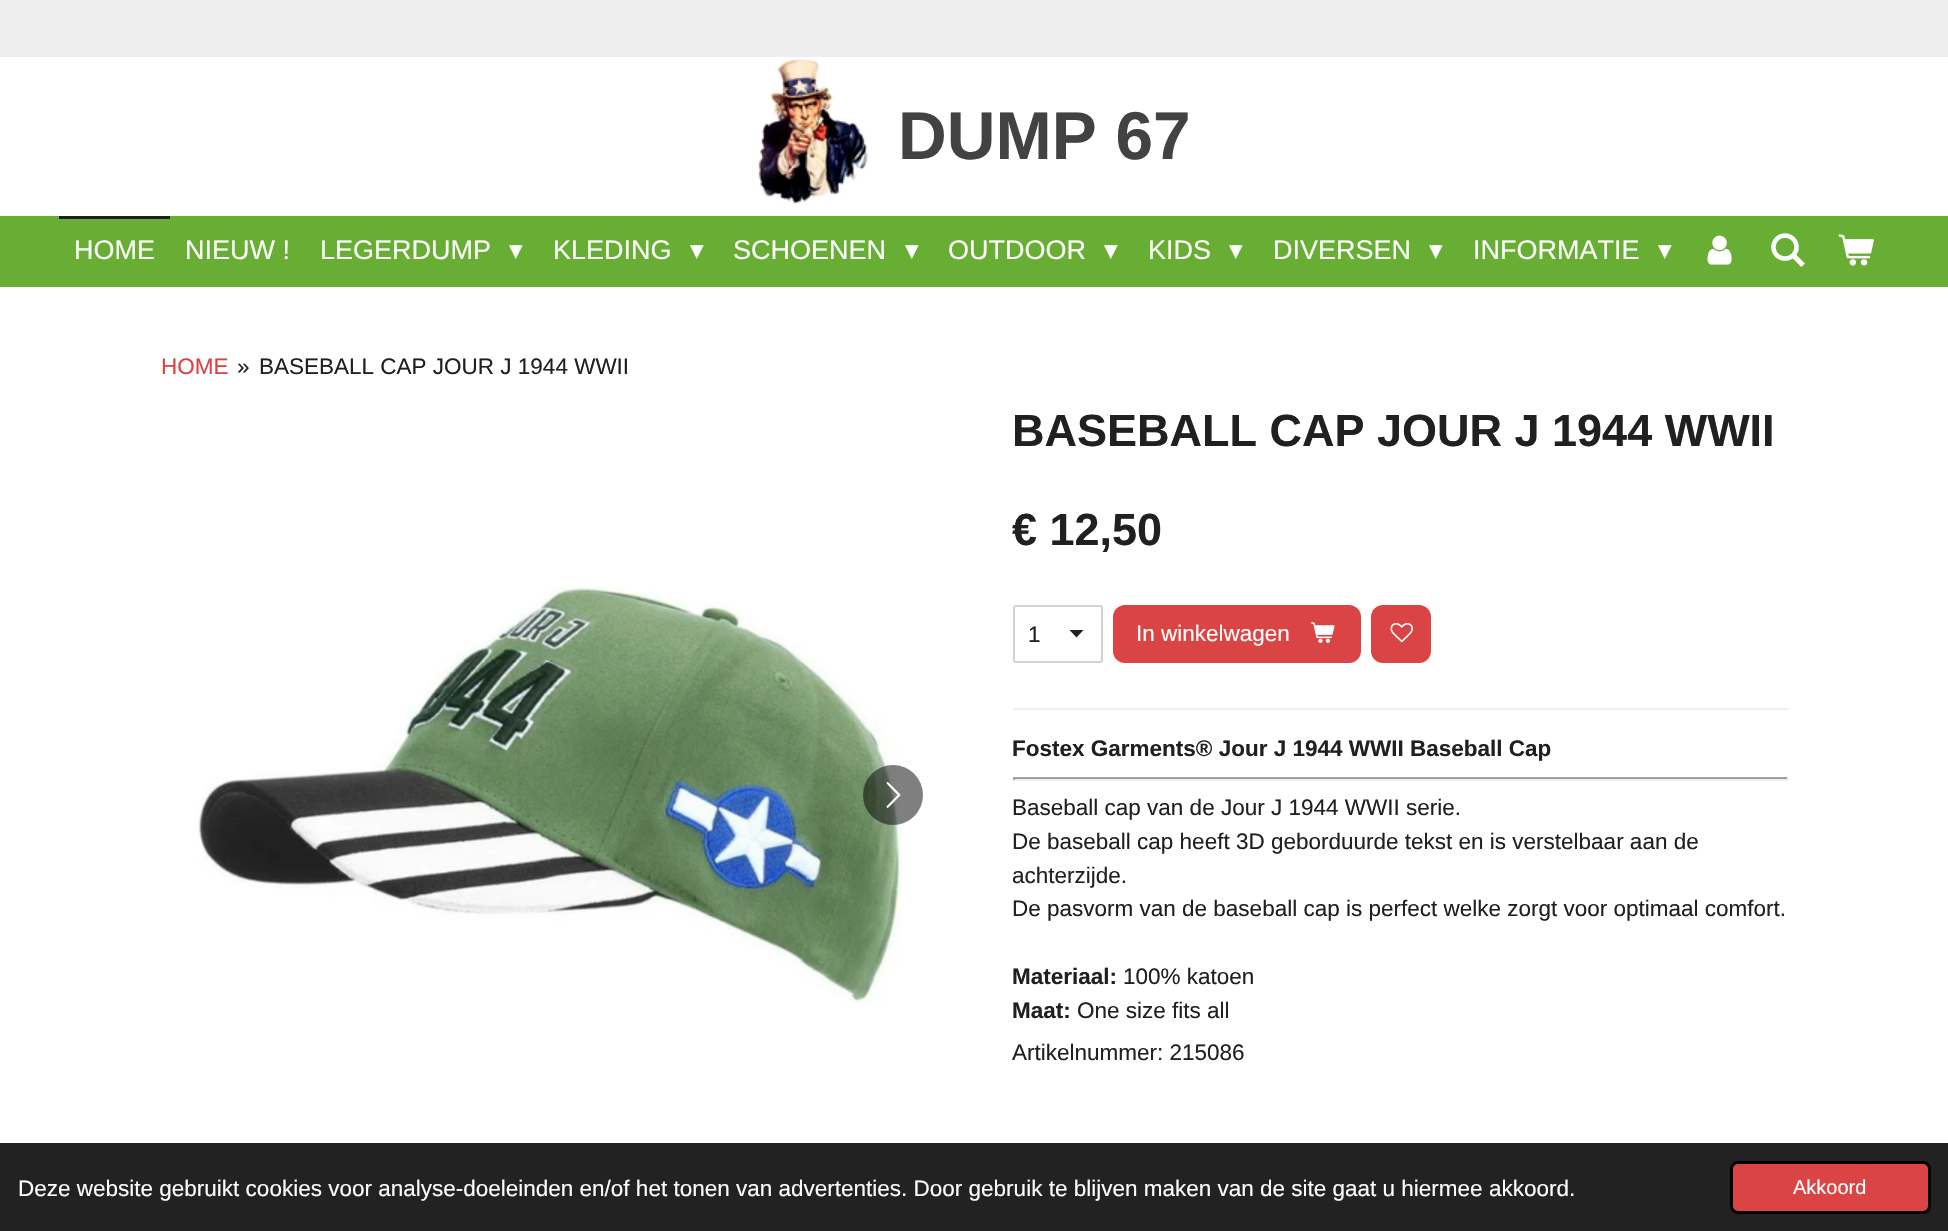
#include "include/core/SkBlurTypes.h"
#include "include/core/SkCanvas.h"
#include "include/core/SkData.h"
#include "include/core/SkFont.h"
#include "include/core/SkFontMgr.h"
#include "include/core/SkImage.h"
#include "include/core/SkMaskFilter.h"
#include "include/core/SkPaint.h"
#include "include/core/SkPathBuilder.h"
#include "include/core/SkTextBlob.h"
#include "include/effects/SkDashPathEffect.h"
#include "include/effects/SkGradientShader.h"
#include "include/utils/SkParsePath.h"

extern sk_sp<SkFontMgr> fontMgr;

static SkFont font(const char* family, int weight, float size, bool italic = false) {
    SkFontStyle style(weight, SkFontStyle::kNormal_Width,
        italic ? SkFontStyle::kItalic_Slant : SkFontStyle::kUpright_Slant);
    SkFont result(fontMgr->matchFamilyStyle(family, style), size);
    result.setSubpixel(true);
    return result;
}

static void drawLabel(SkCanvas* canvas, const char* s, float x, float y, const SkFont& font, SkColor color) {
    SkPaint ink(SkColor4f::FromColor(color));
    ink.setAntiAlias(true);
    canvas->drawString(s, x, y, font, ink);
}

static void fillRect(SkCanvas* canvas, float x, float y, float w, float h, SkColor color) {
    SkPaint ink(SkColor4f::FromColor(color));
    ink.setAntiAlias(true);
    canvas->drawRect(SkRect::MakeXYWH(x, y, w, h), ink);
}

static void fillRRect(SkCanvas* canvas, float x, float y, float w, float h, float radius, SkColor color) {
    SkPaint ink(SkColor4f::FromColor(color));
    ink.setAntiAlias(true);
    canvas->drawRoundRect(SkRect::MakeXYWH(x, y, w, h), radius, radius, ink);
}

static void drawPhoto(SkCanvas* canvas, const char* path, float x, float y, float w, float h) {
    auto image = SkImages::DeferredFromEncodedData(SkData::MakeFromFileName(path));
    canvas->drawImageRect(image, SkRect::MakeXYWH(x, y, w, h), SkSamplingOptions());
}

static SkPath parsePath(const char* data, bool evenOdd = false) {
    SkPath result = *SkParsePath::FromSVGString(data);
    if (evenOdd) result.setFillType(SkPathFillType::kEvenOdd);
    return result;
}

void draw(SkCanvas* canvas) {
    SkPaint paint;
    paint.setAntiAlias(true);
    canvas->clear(0xFFFFFFFF);
    fillRect(canvas, 0, 0, 1948, 57, 0xFFEEEEEE);
    drawPhoto(canvas, "assets/img1.png", 758, 59, 111, 145);
    SkFont font1 = font("Liberation Sans", 700, 67.5f);
    drawLabel(canvas, "DUMP 67", 898, 159, font1, 0xFF424242);
    fillRect(canvas, 0, 216, 1948, 71, 0xFF68AE34);
    fillRect(canvas, 59, 216, 111, 3, 0xFF202020);
    SkFont font2 = font("Liberation Sans", 400, 27);
    drawLabel(canvas, "HOME", 74, 259, font2, 0xFFFDFEFC);
    drawLabel(canvas, "NIEUW !", 185, 259, font2, 0xFFFDFEFC);
    drawLabel(canvas, "LEGERDUMP", 320, 259, font2, 0xFFFDFEFC);
    SkFont font3 = font("DejaVu Sans", 400, 27);
    drawLabel(canvas, "▾", 509, 259, font3, 0xFFFDFEFC);
    drawLabel(canvas, "KLEDING", 553, 259, font2, 0xFFFDFEFC);
    drawLabel(canvas, "▾", 690, 259, font3, 0xFFFDFEFC);
    drawLabel(canvas, "SCHOENEN", 733, 259, font2, 0xFFFDFEFC);
    drawLabel(canvas, "▾", 905, 259, font3, 0xFFFDFEFC);
    drawLabel(canvas, "OUTDOOR", 948, 259, font2, 0xFFFDFEFC);
    drawLabel(canvas, "▾", 1104, 259, font3, 0xFFFDFEFC);
    drawLabel(canvas, "KIDS", 1148, 259, font2, 0xFFFDFEFC);
    drawLabel(canvas, "▾", 1229, 259, font3, 0xFFFDFEFC);
    drawLabel(canvas, "DIVERSEN", 1273, 259, font2, 0xFFFDFEFC);
    drawLabel(canvas, "▾", 1429, 259, font3, 0xFFFDFEFC);
    drawLabel(canvas, "INFORMATIE", 1473, 259, font2, 0xFFFDFEFC);
    drawLabel(canvas, "▾", 1658, 259, font3, 0xFFFDFEFC);
    drawPhoto(canvas, "assets/img2.png", 1707, 235, 25, 30);
    drawPhoto(canvas, "assets/img3.png", 1771, 233, 34, 34);
    drawPhoto(canvas, "assets/img4.png", 1838, 234, 36, 32);
    SkFont font4 = font("Liberation Sans", 400, 22.5f);
    drawLabel(canvas, "HOME", 161, 374, font4, 0xFFDA4444);
    drawLabel(canvas, "»", 237, 374, font4, 0xFF202020);
    drawLabel(canvas, "BASEBALL CAP JOUR J 1944 WWII", 259, 374, font4, 0xFF202020);
    SkFont font5 = font("Liberation Sans", 700, 45);
    drawLabel(canvas, "BASEBALL CAP JOUR J 1944 WWII", 1012, 446, font5, 0xFF202020);
    drawPhoto(canvas, "assets/img5.png", 197, 585, 705, 419);
    paint.setColor(0x80000000);
    canvas->drawCircle(893, 795, 30, paint);
    drawPhoto(canvas, "assets/img6.png", 886, 782, 15, 26);
    drawLabel(canvas, "€ 12,50", 1012, 545, font5, 0xFF202020);
    paint.setColor(0xFF202020);
    canvas->drawPath(parsePath("M1076.5 637.5L1069.5 630H1083.5Z"), paint);
    paint.setStroke(true);
    paint.setStrokeWidth(2);
    paint.setColor(0xFFD3D3D3);
    canvas->drawRoundRect(SkRect::MakeXYWH(1014, 606, 88, 56), 2, 2, paint);
    drawLabel(canvas, "1", 1028, 642, font4, 0xFF202020);
    fillRRect(canvas, 1113, 605, 248, 58, 12, 0xFFDA4444);
    drawLabel(canvas, "In winkelwagen", 1136, 641, font4, 0xFFFDFEFC);
    drawPhoto(canvas, "assets/img7.png", 1311, 622, 24, 21);
    fillRRect(canvas, 1371, 605, 60, 58, 12, 0xFFDA4444);
    drawPhoto(canvas, "assets/img8.png", 1390, 623, 23, 20);
    fillRect(canvas, 1013, 708, 775, 2, 0xFFEFEFEF);
    SkFont font6 = font("Liberation Sans", 700, 22.5f);
    drawLabel(canvas, "Fostex Garments® Jour J 1944 WWII Baseball Cap", 1012, 756, font6, 0xFF202020);
    fillRect(canvas, 1013, 777, 775, 2, 0xFF9F9F9F);
    fillRect(canvas, 1787, 777, 2, 3, 0xFFEEEEEE);
    fillRect(canvas, 1013, 779, 775, 2, 0xFFEEEEEE);
    fillRect(canvas, 1013, 777, 2, 3, 0xFF9F9F9F);
    drawLabel(canvas, "Baseball cap van de Jour J 1944 WWII serie.", 1012, 815, font4, 0xFF202020);
    drawLabel(canvas, "De baseball cap heeft 3D geborduurde tekst en is verstelbaar aan de", 1012, 849, font4, 0xFF202020);
    drawLabel(canvas, "achterzijde.", 1012, 883, font4, 0xFF202020);
    drawLabel(canvas, "De pasvorm van de baseball cap is perfect welke zorgt voor optimaal comfort.", 1012, 916, font4, 0xFF202020);
    drawLabel(canvas, "Materiaal:", 1012, 984, font6, 0xFF202020);
    drawLabel(canvas, "100% katoen", 1123, 984, font4, 0xFF202020);
    drawLabel(canvas, "Maat:", 1012, 1018, font6, 0xFF202020);
    drawLabel(canvas, "One size fits all", 1077, 1018, font4, 0xFF202020);
    drawLabel(canvas, "Artikelnummer: 215086", 1012, 1060, font4, 0xFF202020);
    fillRect(canvas, 0, 1143, 1948, 88, 0xFF222222);
    drawLabel(canvas, "Deze website gebruikt cookies voor analyse-doeleinden en/of het tonen van advertenties. Door gebruik te blijven maken van de site gaat u hiermee akkoord.", 18, 1196, font4, 0xFFFDFEFC);
    paint.setStroke(false);
    paint.setColor(0xFFDA4444);
    canvas->drawRoundRect(SkRect::MakeXYWH(1731.5f, 1162.5f, 198, 50), 6.5f, 6.5f, paint);
    paint.setStroke(true);
    paint.setStrokeWidth(3);
    paint.setColor(0xFF000000);
    canvas->drawRoundRect(SkRect::MakeXYWH(1731.5f, 1162.5f, 198, 50), 6.5f, 6.5f, paint);
    SkFont font7 = font("Liberation Sans", 400, 20);
    drawLabel(canvas, "Akkoord", 1793, 1194, font7, 0xFFFDFEFC);
}
